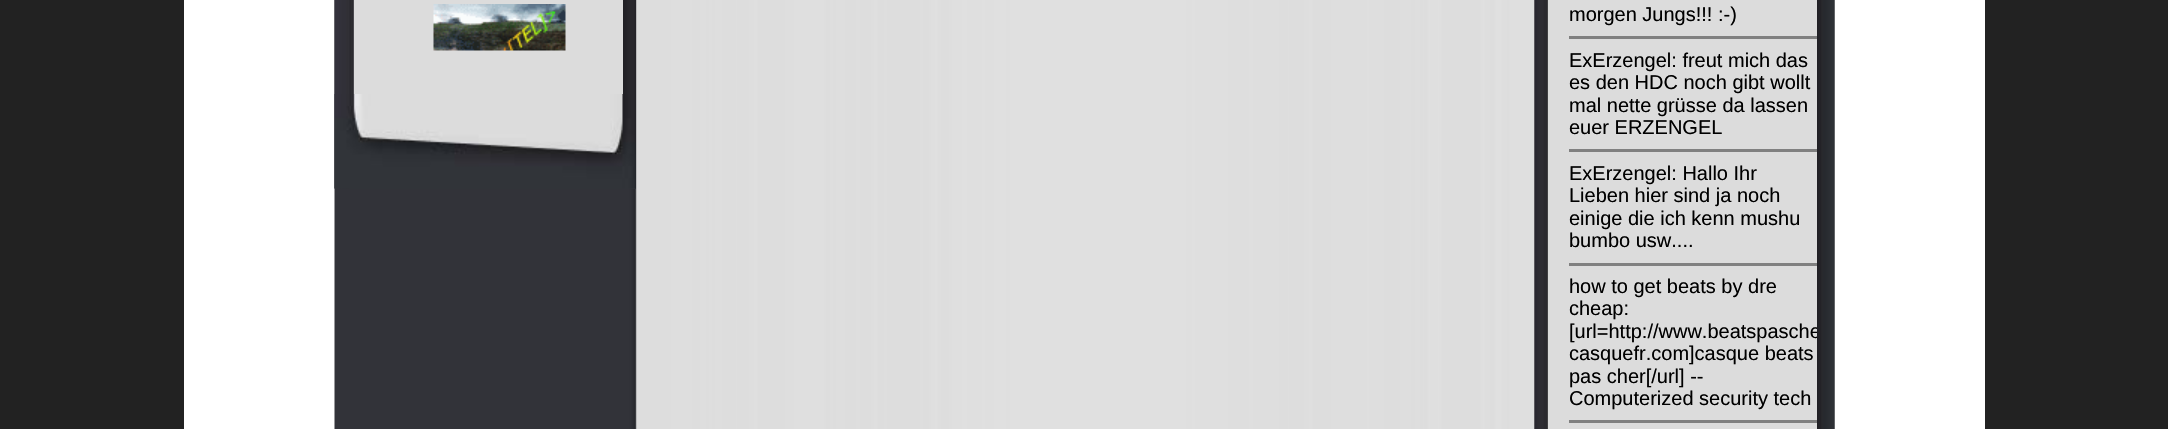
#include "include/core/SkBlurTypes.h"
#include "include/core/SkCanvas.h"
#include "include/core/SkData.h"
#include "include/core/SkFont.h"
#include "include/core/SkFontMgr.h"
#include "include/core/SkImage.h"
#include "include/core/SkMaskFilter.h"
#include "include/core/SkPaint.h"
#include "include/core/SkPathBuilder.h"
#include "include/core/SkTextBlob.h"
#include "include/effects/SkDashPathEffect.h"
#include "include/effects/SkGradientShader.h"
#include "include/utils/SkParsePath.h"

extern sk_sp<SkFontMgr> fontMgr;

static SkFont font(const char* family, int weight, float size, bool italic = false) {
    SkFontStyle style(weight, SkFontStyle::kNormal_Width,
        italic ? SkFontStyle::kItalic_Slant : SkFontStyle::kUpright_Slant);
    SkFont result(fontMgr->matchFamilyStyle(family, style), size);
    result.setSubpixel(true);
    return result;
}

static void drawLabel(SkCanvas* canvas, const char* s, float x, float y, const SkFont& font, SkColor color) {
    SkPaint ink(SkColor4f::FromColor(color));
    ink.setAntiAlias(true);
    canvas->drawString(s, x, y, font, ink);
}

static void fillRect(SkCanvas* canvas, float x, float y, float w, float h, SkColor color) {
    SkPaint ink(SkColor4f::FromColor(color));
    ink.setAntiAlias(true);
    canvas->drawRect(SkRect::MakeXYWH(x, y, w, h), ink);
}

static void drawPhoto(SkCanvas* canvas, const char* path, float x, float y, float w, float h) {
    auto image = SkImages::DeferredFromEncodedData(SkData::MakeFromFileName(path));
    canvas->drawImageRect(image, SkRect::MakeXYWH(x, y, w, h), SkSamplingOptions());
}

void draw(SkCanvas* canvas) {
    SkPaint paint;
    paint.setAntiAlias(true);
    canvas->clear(0xFF222222);
    fillRect(canvas, 184, 0, 1801, 429, 0xFFFFFFFF);
    drawPhoto(canvas, "assets/img1.png", 334, 0, 1501, 429);
    drawPhoto(canvas, "assets/img2.png", 334, 0, 302, 189);
    fillRect(canvas, 354, 0, 269, 94, 0xFFDCDCDC);
    drawPhoto(canvas, "assets/img3.png", 433, 4, 133, 47);
    fillRect(canvas, 349, 188, 287, 1, 0xFF313439);
    drawPhoto(canvas, "assets/img4.png", 334, 94, 302, 95);
    drawPhoto(canvas, "assets/img5.png", 1534, 0, 301, 429);
    fillRect(canvas, 1548, 0, 269, 429, 0xFFDCDCDC);
    SkFont font1 = font("Liberation Sans", 400, 20);
    drawLabel(canvas, "morgen Jungs!!! :-)", 1569, 21, font1, 0xFF000000);
    fillRect(canvas, 1569, 36, 248, 3, 0xFF808080);
    drawLabel(canvas, "ExErzengel: freut mich das", 1569, 67, font1, 0xFF000000);
    drawLabel(canvas, "es den HDC noch gibt wollt", 1569, 89, font1, 0xFF000000);
    drawLabel(canvas, "mal nette grüsse da lassen", 1569, 112, font1, 0xFF000000);
    drawLabel(canvas, "euer ERZENGEL", 1569, 134, font1, 0xFF000000);
    fillRect(canvas, 1569, 149, 248, 3, 0xFF808080);
    drawLabel(canvas, "ExErzengel: Hallo Ihr", 1569, 180, font1, 0xFF000000);
    drawLabel(canvas, "Lieben hier sind ja noch", 1569, 202, font1, 0xFF000000);
    drawLabel(canvas, "einige die ich kenn mushu", 1569, 225, font1, 0xFF000000);
    drawLabel(canvas, "bumbo usw....", 1569, 247, font1, 0xFF000000);
    fillRect(canvas, 1569, 263, 248, 3, 0xFF808080);
    drawLabel(canvas, "how to get beats by dre", 1569, 293, font1, 0xFF000000);
    drawLabel(canvas, "cheap:", 1569, 315, font1, 0xFF000000);
    canvas->save();
    canvas->clipRect(SkRect::MakeXYWH(1569, 0, 248, 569));
    drawLabel(canvas, "[url=http://www.beatspasche", 1569, 338, font1, 0xFF000000);
    canvas->restore();
    drawLabel(canvas, "casquefr.com]casque beats", 1569, 360, font1, 0xFF000000);
    drawLabel(canvas, "pas cher[/url] --", 1569, 383, font1, 0xFF000000);
    drawLabel(canvas, "Computerized security tech", 1569, 405, font1, 0xFF000000);
    fillRect(canvas, 1569, 420, 248, 3, 0xFF808080);
}
